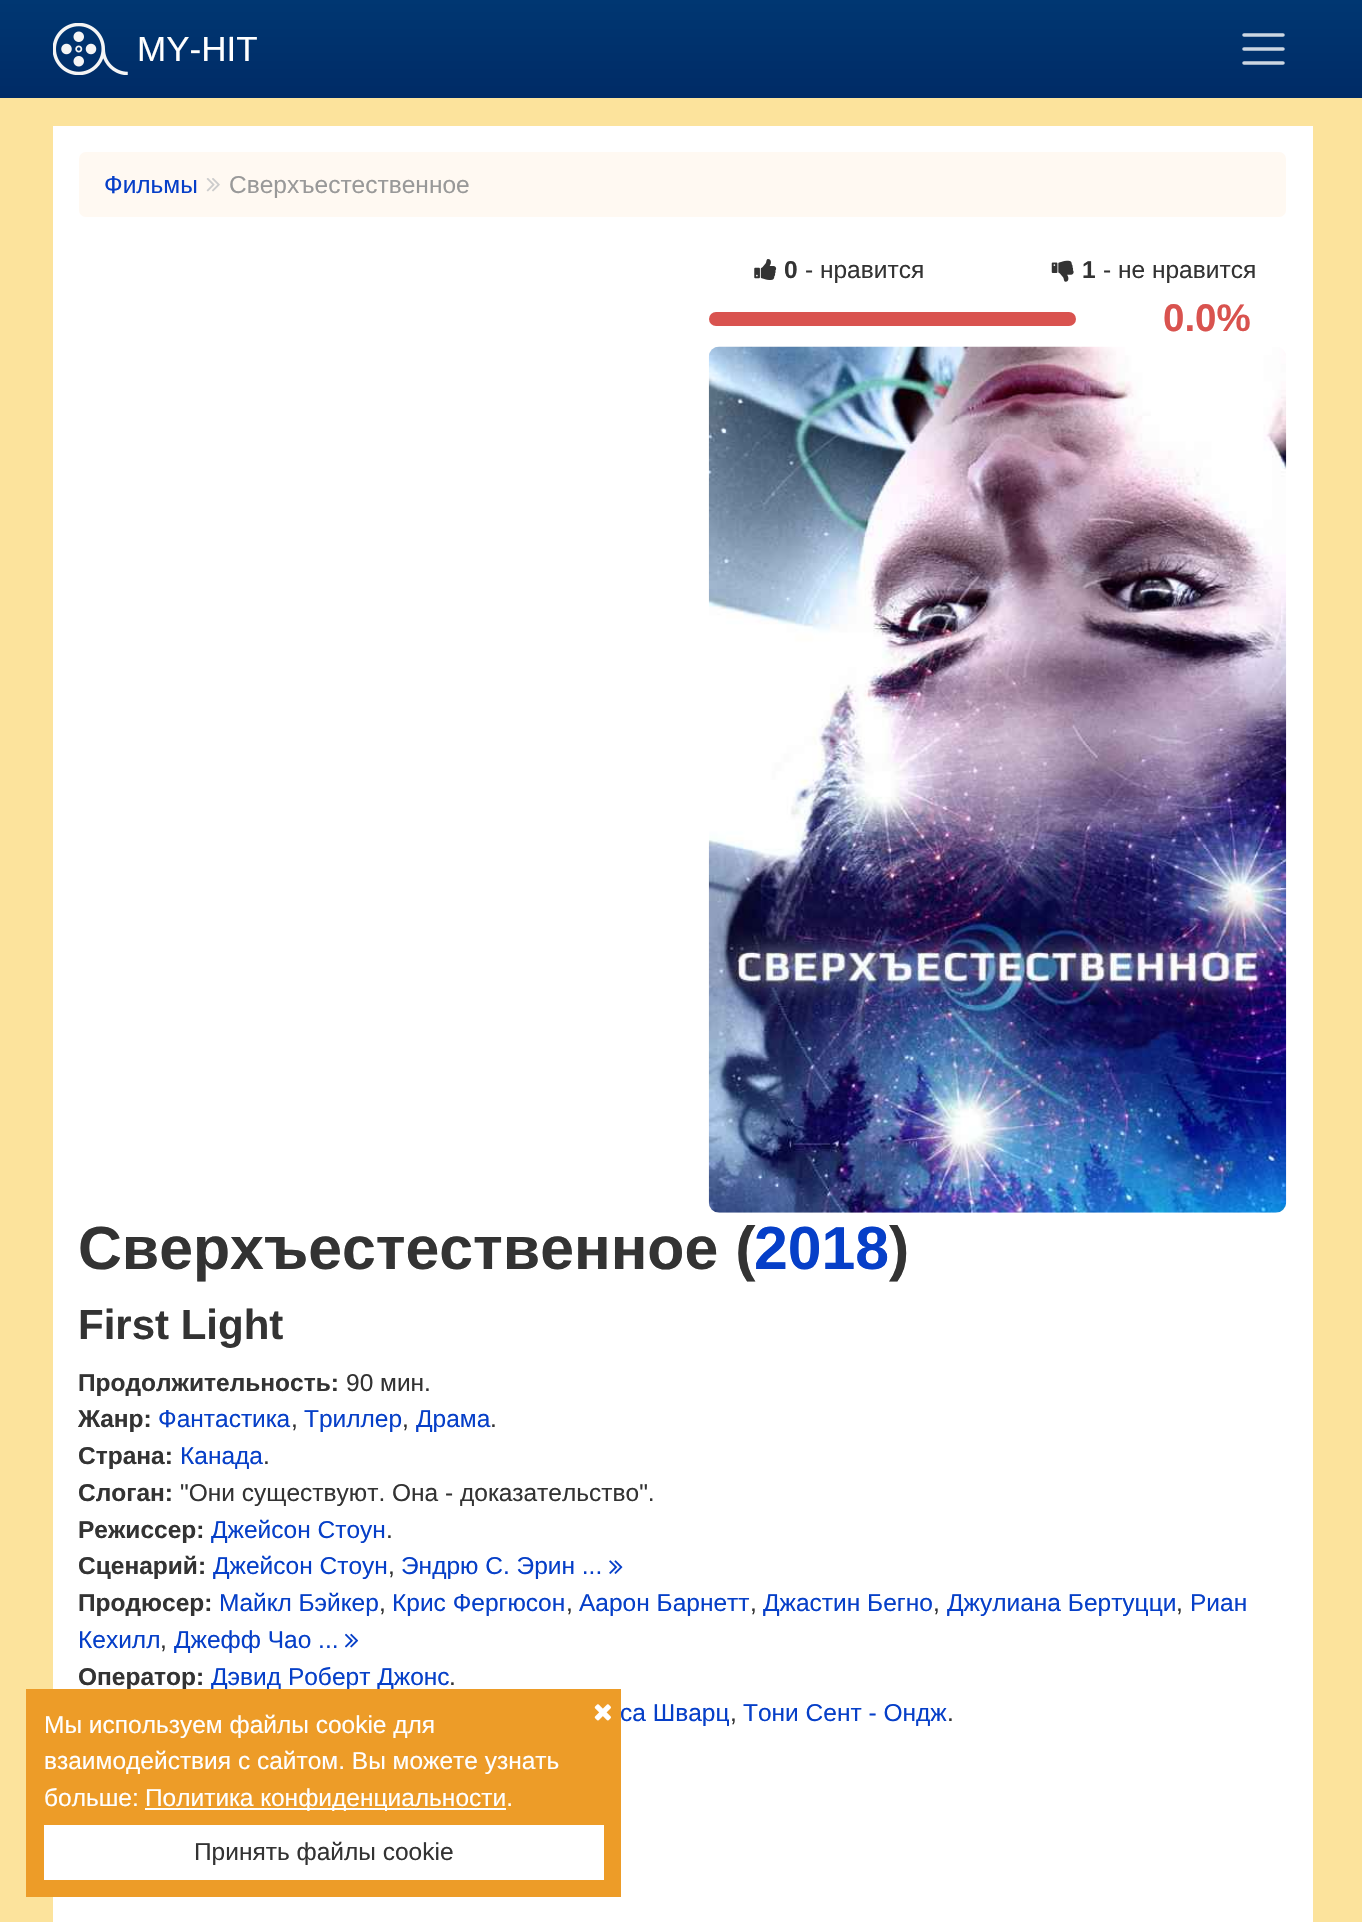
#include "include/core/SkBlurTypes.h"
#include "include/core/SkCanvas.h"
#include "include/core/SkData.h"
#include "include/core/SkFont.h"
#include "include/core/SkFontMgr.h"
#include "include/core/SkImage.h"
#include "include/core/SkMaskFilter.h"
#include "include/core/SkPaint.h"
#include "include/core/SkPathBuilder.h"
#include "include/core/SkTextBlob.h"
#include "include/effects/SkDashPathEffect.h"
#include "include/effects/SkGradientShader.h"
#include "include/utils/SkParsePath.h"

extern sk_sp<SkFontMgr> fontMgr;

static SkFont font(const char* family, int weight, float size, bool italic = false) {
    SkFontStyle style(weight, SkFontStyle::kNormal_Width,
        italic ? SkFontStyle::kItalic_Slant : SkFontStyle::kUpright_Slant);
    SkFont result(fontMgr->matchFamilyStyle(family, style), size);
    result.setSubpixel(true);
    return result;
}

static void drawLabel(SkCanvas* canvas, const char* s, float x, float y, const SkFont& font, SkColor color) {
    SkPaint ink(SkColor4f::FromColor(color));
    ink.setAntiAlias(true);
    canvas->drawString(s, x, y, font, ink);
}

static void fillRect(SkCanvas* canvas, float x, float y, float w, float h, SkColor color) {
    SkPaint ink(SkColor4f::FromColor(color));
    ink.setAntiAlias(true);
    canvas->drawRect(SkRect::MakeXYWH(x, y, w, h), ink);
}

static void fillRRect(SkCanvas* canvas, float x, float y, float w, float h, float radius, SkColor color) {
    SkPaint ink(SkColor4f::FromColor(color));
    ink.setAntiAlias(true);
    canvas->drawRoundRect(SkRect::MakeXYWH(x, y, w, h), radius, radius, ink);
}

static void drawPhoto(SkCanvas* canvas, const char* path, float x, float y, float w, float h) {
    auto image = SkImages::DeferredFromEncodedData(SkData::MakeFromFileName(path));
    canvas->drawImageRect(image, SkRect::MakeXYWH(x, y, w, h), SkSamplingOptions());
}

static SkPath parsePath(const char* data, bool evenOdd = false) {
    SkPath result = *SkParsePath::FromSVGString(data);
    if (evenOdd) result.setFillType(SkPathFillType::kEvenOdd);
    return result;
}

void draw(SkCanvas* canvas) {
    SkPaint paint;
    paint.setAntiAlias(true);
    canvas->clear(0xFFFCE39C);
    {
        const SkColor colors[] = {0xFF003772, 0xFF002B66};
        const float stops[] = {0, 1};
        const SkPoint ends[] = {{682, 0}, {682, 98}};
        paint.setShader(SkGradientShader::MakeLinear(ends, colors, stops, 2, SkTileMode::kClamp));
        paint.setAlpha(255);
    }
    canvas->drawRect(SkRect::MakeXYWH(0, 0, 1362, 98), paint);
    drawPhoto(canvas, "assets/img1.png", 53, 23, 75, 52);
    SkFont font1 = font("Liberation Sans", 400, 35);
    drawLabel(canvas, "MY-HIT", 137, 61, font1, 0xFFFFFFFF);
    paint.setStroke(true);
    paint.setStrokeWidth(3.5f);
    paint.setStrokeCap(SkPaint::kRound_Cap);
    paint.setShader(nullptr);
    paint.setColor(0xCCFFFFFF);
    canvas->drawPath(parsePath("M1244 35H1283M1244 49H1283M1244 63H1283"), paint);
    fillRect(canvas, 53, 126, 1260, 1796, 0xFFFFFFFF);
    fillRRect(canvas, 79, 152, 1207, 65, 7, 0xFFFFF9F2);
    SkFont font2 = font("Liberation Sans", 400, 24.5f);
    drawLabel(canvas, "Фильмы", 104, 193, font2, 0xFF063FC8);
    drawPhoto(canvas, "assets/img2.png", 206, 178, 14, 14);
    drawLabel(canvas, "Сверхъестественное", 229, 193, font2, 0xFF999999);
    drawPhoto(canvas, "assets/img3.png", 754, 259, 23, 21);
    SkFont font3 = font("Liberation Sans", 700, 24.5f);
    drawLabel(canvas, "0", 784, 278, font3, 0xFF333333);
    drawLabel(canvas, "- нравится", 805, 278, font2, 0xFF333333);
    drawPhoto(canvas, "assets/img4.png", 1051, 260, 23, 22);
    drawLabel(canvas, "1", 1082, 278, font3, 0xFF333333);
    drawLabel(canvas, "- не нравится", 1103, 278, font2, 0xFF333333);
    fillRRect(canvas, 709, 312, 367, 14, 7, 0xFFD9534F);
    SkFont font4 = font("Liberation Sans", 700, 38.5f);
    drawLabel(canvas, "0.0%", 1163, 331, font4, 0xFFD9534F);
    drawPhoto(canvas, "assets/img5.png", 708, 346, 579, 867);
    SkFont font5 = font("Liberation Sans", 700, 60.75f);
    drawLabel(canvas, "Сверхъестественное (", 78, 1269, font5, 0xFF333333);
    drawLabel(canvas, "2018", 754, 1269, font5, 0xFF063FC8);
    drawLabel(canvas, ")", 889, 1269, font5, 0xFF333333);
    SkFont font6 = font("Liberation Sans", 700, 42);
    drawLabel(canvas, "First Light", 78, 1339, font6, 0xFF333333);
    drawLabel(canvas, "Продолжительность:", 78, 1391, font3, 0xFF333333);
    drawLabel(canvas, "90 мин.", 346, 1391, font2, 0xFF333333);
    drawLabel(canvas, "Жанр:", 78, 1427, font3, 0xFF333333);
    drawLabel(canvas, "Фантастика", 158, 1427, font2, 0xFF063FC8);
    drawLabel(canvas, ",", 291, 1427, font2, 0xFF333333);
    drawLabel(canvas, "Триллер", 304, 1427, font2, 0xFF063FC8);
    drawLabel(canvas, ",", 402, 1427, font2, 0xFF333333);
    drawLabel(canvas, "Драма", 416, 1427, font2, 0xFF063FC8);
    drawLabel(canvas, ".", 490, 1427, font2, 0xFF333333);
    drawLabel(canvas, "Страна:", 78, 1464, font3, 0xFF333333);
    drawLabel(canvas, "Канада", 180, 1464, font2, 0xFF063FC8);
    drawLabel(canvas, ".", 263, 1464, font2, 0xFF333333);
    drawLabel(canvas, "Слоган:", 78, 1501, font3, 0xFF333333);
    drawLabel(canvas, "\"Они существуют. Она - доказательство\".", 180, 1501, font2, 0xFF333333);
    drawLabel(canvas, "Режиссер:", 78, 1538, font3, 0xFF333333);
    drawLabel(canvas, "Джейсон Стоун", 211, 1538, font2, 0xFF063FC8);
    drawLabel(canvas, ".", 386, 1538, font2, 0xFF333333);
    drawLabel(canvas, "Сценарий:", 78, 1574, font3, 0xFF333333);
    drawLabel(canvas, "Джейсон Стоун", 213, 1574, font2, 0xFF063FC8);
    drawLabel(canvas, ",", 388, 1574, font2, 0xFF333333);
    drawLabel(canvas, "Эндрю С. Эрин ...", 401, 1574, font2, 0xFF063FC8);
    drawPhoto(canvas, "assets/img6.png", 609, 1560, 14, 14);
    drawLabel(canvas, "Продюсер:", 78, 1611, font3, 0xFF333333);
    drawLabel(canvas, "Майкл Бэйкер", 219, 1611, font2, 0xFF063FC8);
    drawLabel(canvas, ",", 379, 1611, font2, 0xFF333333);
    drawLabel(canvas, "Крис Фергюсон", 392, 1611, font2, 0xFF063FC8);
    drawLabel(canvas, ",", 566, 1611, font2, 0xFF333333);
    drawLabel(canvas, "Аарон Барнетт", 579, 1611, font2, 0xFF063FC8);
    drawLabel(canvas, ",", 750, 1611, font2, 0xFF333333);
    drawLabel(canvas, "Джастин Бегно", 763, 1611, font2, 0xFF063FC8);
    drawLabel(canvas, ",", 933, 1611, font2, 0xFF333333);
    drawLabel(canvas, "Джулиана Бертуцци", 947, 1611, font2, 0xFF063FC8);
    drawLabel(canvas, ",", 1176, 1611, font2, 0xFF333333);
    drawLabel(canvas, "Риан", 1190, 1611, font2, 0xFF063FC8);
    drawLabel(canvas, "Кехилл", 78, 1648, font2, 0xFF063FC8);
    drawLabel(canvas, ",", 160, 1648, font2, 0xFF333333);
    drawLabel(canvas, "Джефф Чао ...", 174, 1648, font2, 0xFF063FC8);
    drawPhoto(canvas, "assets/img7.png", 345, 1633, 14, 15);
    drawLabel(canvas, "Оператор:", 78, 1685, font3, 0xFF333333);
    drawLabel(canvas, "Дэвид Роберт Джонс", 211, 1685, font2, 0xFF063FC8);
    drawLabel(canvas, ".", 449, 1685, font2, 0xFF333333);
    drawLabel(canvas, "са Шварц", 620, 1721, font2, 0xFF063FC8);
    drawLabel(canvas, ",", 730, 1721, font2, 0xFF333333);
    drawLabel(canvas, "Тони Сент - Ондж", 743, 1721, font2, 0xFF063FC8);
    drawLabel(canvas, ".", 947, 1721, font2, 0xFF333333);
    fillRect(canvas, 26, 1689, 595, 208, 0xFFED9C28);
    drawLabel(canvas, "Мы используем файлы cookie для", 44, 1733, font2, 0xFFFFFFFF);
    drawLabel(canvas, "взаимодействия с сайтом. Вы можете узнать", 44, 1769, font2, 0xFFFFFFFF);
    drawLabel(canvas, "больше:", 44, 1806, font2, 0xFFFFFFFF);
    fillRect(canvas, 145, 1808, 361, 2, 0xFFFFFFFF);
    drawLabel(canvas, "Политика конфиденциальности.", 145, 1806, font2, 0xFFFFFFFF);
    drawPhoto(canvas, "assets/img8.png", 594, 1704, 17, 17);
    fillRect(canvas, 44, 1825, 560, 55, 0xFFFFFFFF);
    drawLabel(canvas, "Принять файлы cookie", 194, 1860, font2, 0xFF333333);
}
